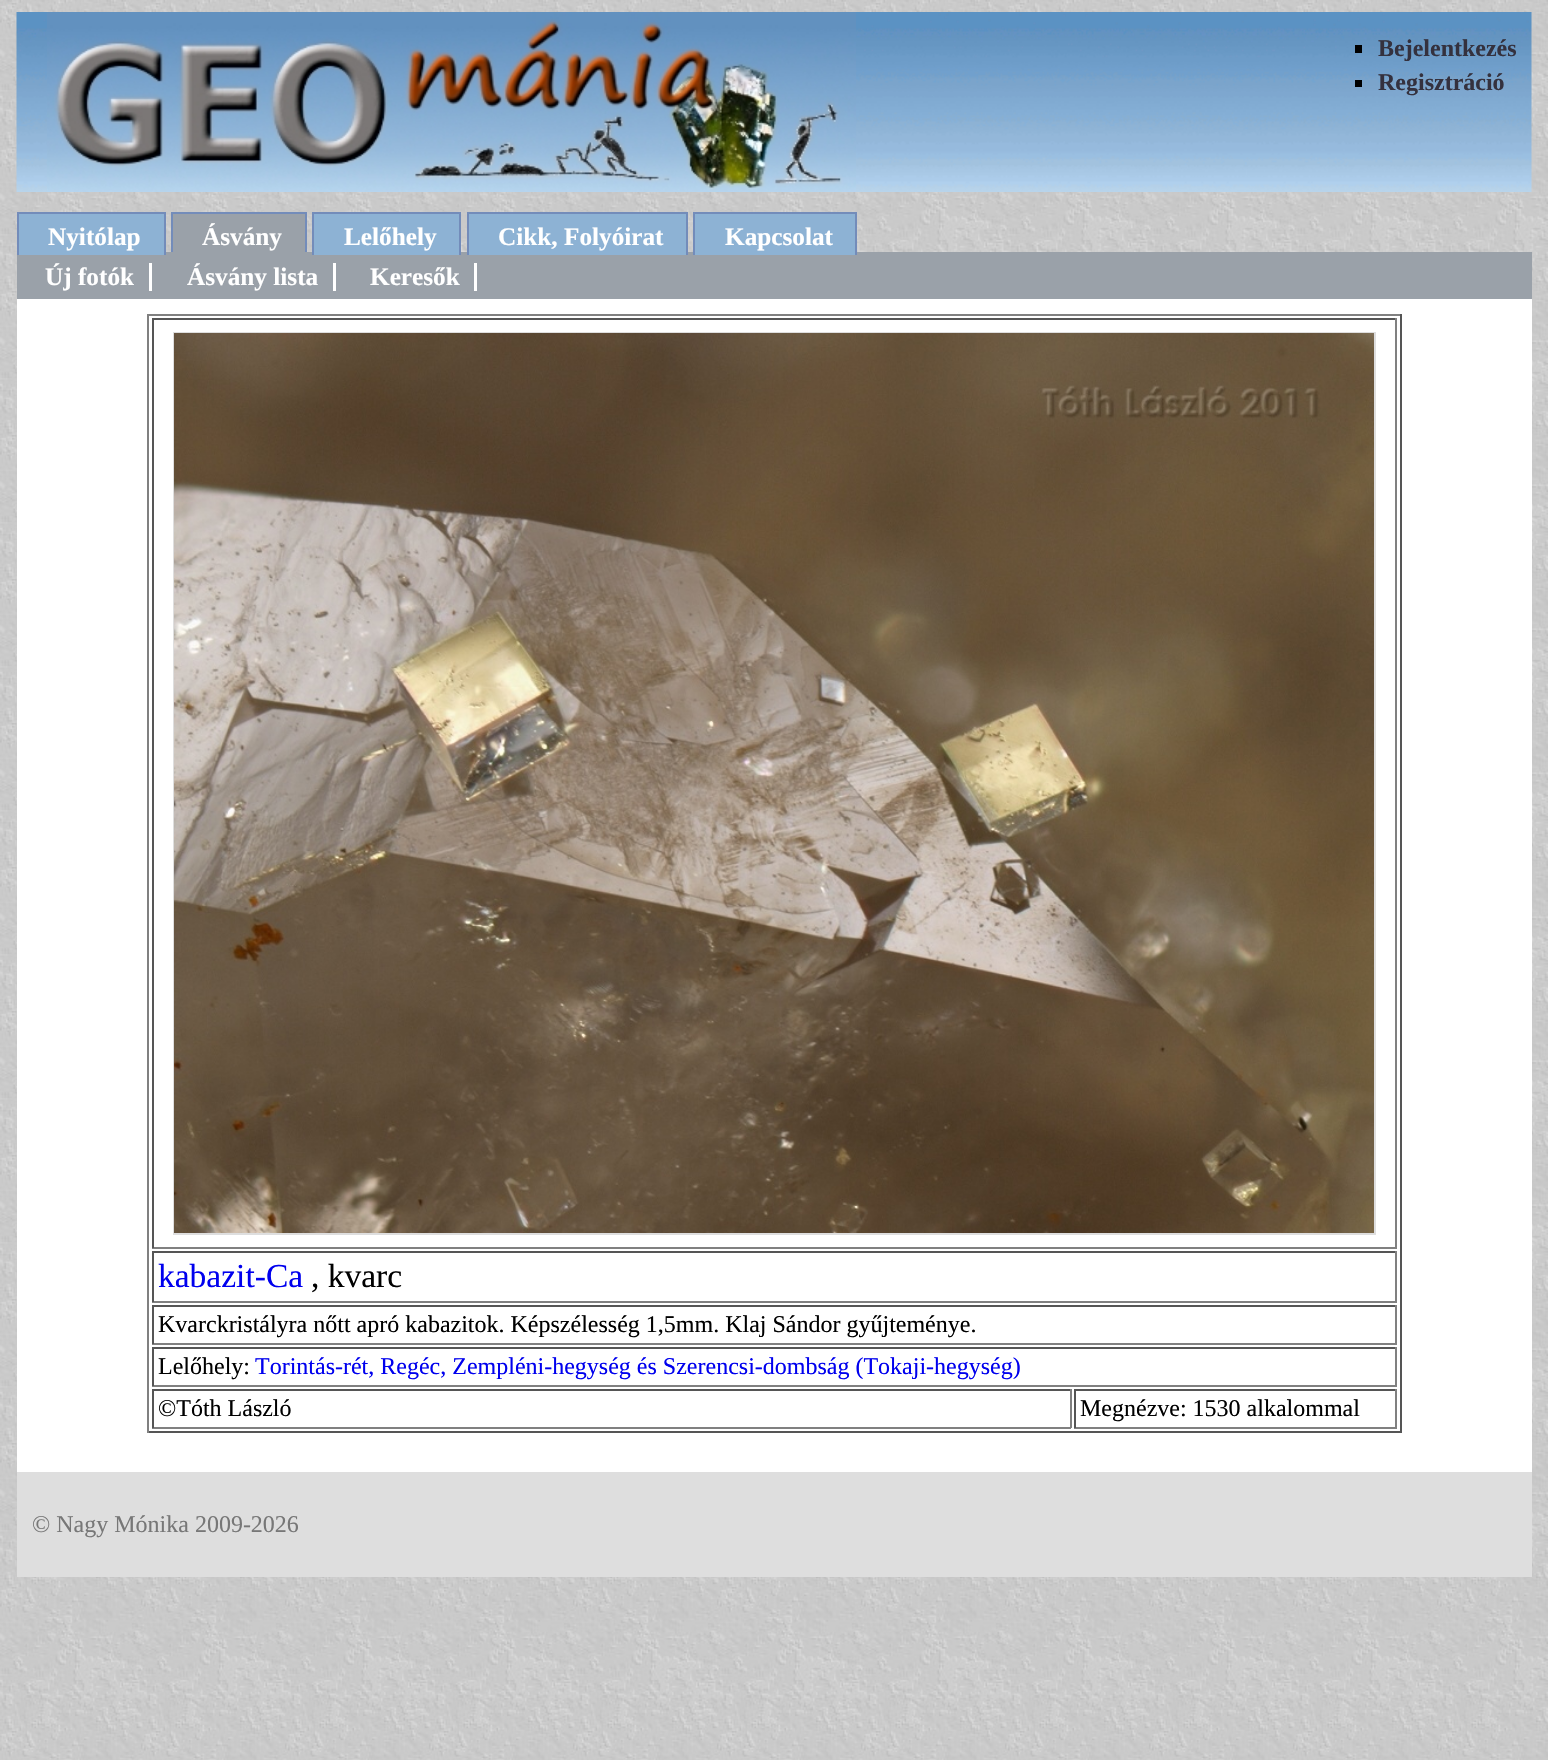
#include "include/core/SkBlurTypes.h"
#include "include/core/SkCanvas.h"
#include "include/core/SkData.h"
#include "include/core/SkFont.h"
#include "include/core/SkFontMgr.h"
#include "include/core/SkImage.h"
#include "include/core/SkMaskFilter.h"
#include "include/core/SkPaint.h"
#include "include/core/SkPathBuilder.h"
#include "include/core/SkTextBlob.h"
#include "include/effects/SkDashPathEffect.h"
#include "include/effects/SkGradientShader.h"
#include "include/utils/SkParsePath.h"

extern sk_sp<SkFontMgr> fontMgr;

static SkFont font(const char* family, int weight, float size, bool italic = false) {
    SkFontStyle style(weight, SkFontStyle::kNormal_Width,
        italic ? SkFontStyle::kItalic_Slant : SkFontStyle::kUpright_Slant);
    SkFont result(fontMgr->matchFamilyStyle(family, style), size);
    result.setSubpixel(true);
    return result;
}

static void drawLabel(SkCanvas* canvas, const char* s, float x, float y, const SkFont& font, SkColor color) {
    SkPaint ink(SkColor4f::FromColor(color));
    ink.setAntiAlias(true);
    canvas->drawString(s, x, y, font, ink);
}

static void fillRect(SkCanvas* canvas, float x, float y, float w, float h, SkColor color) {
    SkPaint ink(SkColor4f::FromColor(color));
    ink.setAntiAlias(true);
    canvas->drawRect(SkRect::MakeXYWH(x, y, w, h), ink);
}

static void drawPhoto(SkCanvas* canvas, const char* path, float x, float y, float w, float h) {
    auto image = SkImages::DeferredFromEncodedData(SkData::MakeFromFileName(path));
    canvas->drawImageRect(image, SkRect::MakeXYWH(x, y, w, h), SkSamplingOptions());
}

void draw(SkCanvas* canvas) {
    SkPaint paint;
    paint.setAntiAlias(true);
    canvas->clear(0xFFFFFFFF);
    drawPhoto(canvas, "assets/img1.png", 0, 0, 1548, 1760);
    drawPhoto(canvas, "assets/img2.png", 16, 12, 1516, 180);
    drawPhoto(canvas, "assets/img3.png", 47, 12, 809, 180);
    fillRect(canvas, 1355, 45, 7, 8, 0xFF000000);
    SkFont font1 = font("Liberation Serif", 700, 24);
    drawLabel(canvas, "Bejelentkezés", 1378, 56, font1, 0xFF34313E);
    fillRect(canvas, 1355, 80, 7, 7, 0xFF000000);
    drawLabel(canvas, "Regisztráció", 1378, 90, font1, 0xFF34313E);
    fillRect(canvas, 17, 252, 1515, 47, 0xFF9AA1A9);
    fillRect(canvas, 19, 214, 145, 41, 0xFF8DB2D4);
    SkFont font2 = font("Liberation Serif", 700, 25.25f);
    drawLabel(canvas, "Nyitólap", 48, 245, font2, 0xFFFFFFFF);
    fillRect(canvas, 17, 212, 148, 2, 0xFF738CBA);
    fillRect(canvas, 164, 212, 2, 43, 0xFF738CBA);
    fillRect(canvas, 17, 212, 2, 43, 0xFF738CBA);
    fillRect(canvas, 173, 214, 132, 38, 0xFF9AA1A9);
    drawLabel(canvas, "Ásvány", 202, 245, font2, 0xFFFFFFFF);
    fillRect(canvas, 171, 212, 135, 2, 0xFF738CBA);
    fillRect(canvas, 305, 212, 2, 40, 0xFF738CBA);
    fillRect(canvas, 171, 212, 2, 40, 0xFF738CBA);
    fillRect(canvas, 314, 214, 145, 41, 0xFF8DB2D4);
    drawLabel(canvas, "Lelőhely", 344, 245, font2, 0xFFFFFFFF);
    fillRect(canvas, 312, 212, 149, 2, 0xFF738CBA);
    fillRect(canvas, 459, 212, 2, 43, 0xFF738CBA);
    fillRect(canvas, 312, 212, 2, 43, 0xFF738CBA);
    fillRect(canvas, 469, 214, 217, 41, 0xFF8DB2D4);
    drawLabel(canvas, "Cikk, Folyóirat", 498, 245, font2, 0xFFFFFFFF);
    fillRect(canvas, 467, 212, 220, 2, 0xFF738CBA);
    fillRect(canvas, 686, 212, 2, 43, 0xFF738CBA);
    fillRect(canvas, 467, 212, 2, 43, 0xFF738CBA);
    fillRect(canvas, 695, 214, 160, 41, 0xFF8DB2D4);
    drawLabel(canvas, "Kapcsolat", 725, 245, font2, 0xFFFFFFFF);
    fillRect(canvas, 693, 212, 164, 2, 0xFF738CBA);
    fillRect(canvas, 855, 212, 2, 43, 0xFF738CBA);
    fillRect(canvas, 693, 212, 2, 43, 0xFF738CBA);
    fillRect(canvas, 17, 299, 1515, 1173, 0xFFFFFFFF);
    drawLabel(canvas, "Új fotók", 45, 285, font2, 0xFFFFFFFF);
    fillRect(canvas, 149, 263, 3, 28, 0xFFFFFFFF);
    drawLabel(canvas, "Ásvány lista", 187, 285, font2, 0xFFFFFFFF);
    fillRect(canvas, 333, 263, 3, 28, 0xFFFFFFFF);
    drawLabel(canvas, "Keresők", 370, 285, font2, 0xFFFFFFFF);
    fillRect(canvas, 474, 263, 3, 28, 0xFFFFFFFF);
    fillRect(canvas, 147, 314, 1254, 2, 0xFF808080);
    fillRect(canvas, 1400, 314, 2, 1119, 0xFF555555);
    fillRect(canvas, 147, 1431, 1254, 2, 0xFF555555);
    fillRect(canvas, 147, 314, 2, 1119, 0xFF808080);
    fillRect(canvas, 152, 318, 1245, 2, 0xFF555555);
    fillRect(canvas, 1395, 318, 2, 930, 0xFF808080);
    fillRect(canvas, 152, 1247, 1245, 2, 0xFF808080);
    fillRect(canvas, 152, 318, 2, 930, 0xFF555555);
    paint.setStroke(true);
    paint.setStrokeWidth(2);
    paint.setColor(0xFFDEDEDE);
    canvas->drawRect(SkRect::MakeXYWH(174, 333, 1201, 901), paint);
    drawPhoto(canvas, "assets/img4.png", 174, 333, 1200, 900);
    fillRect(canvas, 152, 1251, 1245, 2, 0xFF555555);
    fillRect(canvas, 1395, 1251, 2, 51, 0xFF808080);
    fillRect(canvas, 152, 1301, 1245, 2, 0xFF808080);
    fillRect(canvas, 152, 1251, 2, 51, 0xFF555555);
    SkFont font3 = font("Liberation Serif", 400, 33.5f);
    drawLabel(canvas, "kabazit-Ca", 158, 1287, font3, 0xFF0000EE);
    drawLabel(canvas, ", kvarc", 311, 1287, font3, 0xFF000000);
    fillRect(canvas, 152, 1305, 1245, 2, 0xFF555555);
    fillRect(canvas, 1395, 1305, 2, 39, 0xFF808080);
    fillRect(canvas, 152, 1343, 1245, 2, 0xFF808080);
    fillRect(canvas, 152, 1305, 2, 39, 0xFF555555);
    SkFont font4 = font("Liberation Serif", 400, 24);
    drawLabel(canvas, "Kvarckristályra nőtt apró kabazitok. Képszélesség 1,5mm. Klaj Sándor gyűjteménye.", 158, 1332, font4, 0xFF000000);
    fillRect(canvas, 152, 1347, 1245, 2, 0xFF555555);
    fillRect(canvas, 1395, 1347, 2, 39, 0xFF808080);
    fillRect(canvas, 152, 1385, 1245, 2, 0xFF808080);
    fillRect(canvas, 152, 1347, 2, 39, 0xFF555555);
    drawLabel(canvas, "Lelőhely:", 158, 1374, font4, 0xFF000000);
    drawLabel(canvas, "Torintás-rét, Regéc, Zempléni-hegység és Szerencsi-dombság (Tokaji-hegység)", 255, 1374, font4, 0xFF0000EE);
    fillRect(canvas, 152, 1389, 919, 2, 0xFF555555);
    fillRect(canvas, 1070, 1389, 2, 39, 0xFF808080);
    fillRect(canvas, 152, 1427, 919, 2, 0xFF808080);
    fillRect(canvas, 152, 1389, 2, 39, 0xFF555555);
    drawLabel(canvas, "©Tóth László", 158, 1416, font4, 0xFF000000);
    fillRect(canvas, 1074, 1389, 323, 2, 0xFF555555);
    fillRect(canvas, 1395, 1389, 2, 39, 0xFF808080);
    fillRect(canvas, 1074, 1427, 323, 2, 0xFF808080);
    fillRect(canvas, 1074, 1389, 2, 39, 0xFF555555);
    drawLabel(canvas, "Megnézve: 1530 alkalommal", 1080, 1416, font4, 0xFF000000);
    fillRect(canvas, 17, 1472, 1515, 105, 0xFFDEDEDE);
    drawLabel(canvas, "© Nagy Mónika 2009-2026", 32, 1532, font4, 0xFF777777);
}
